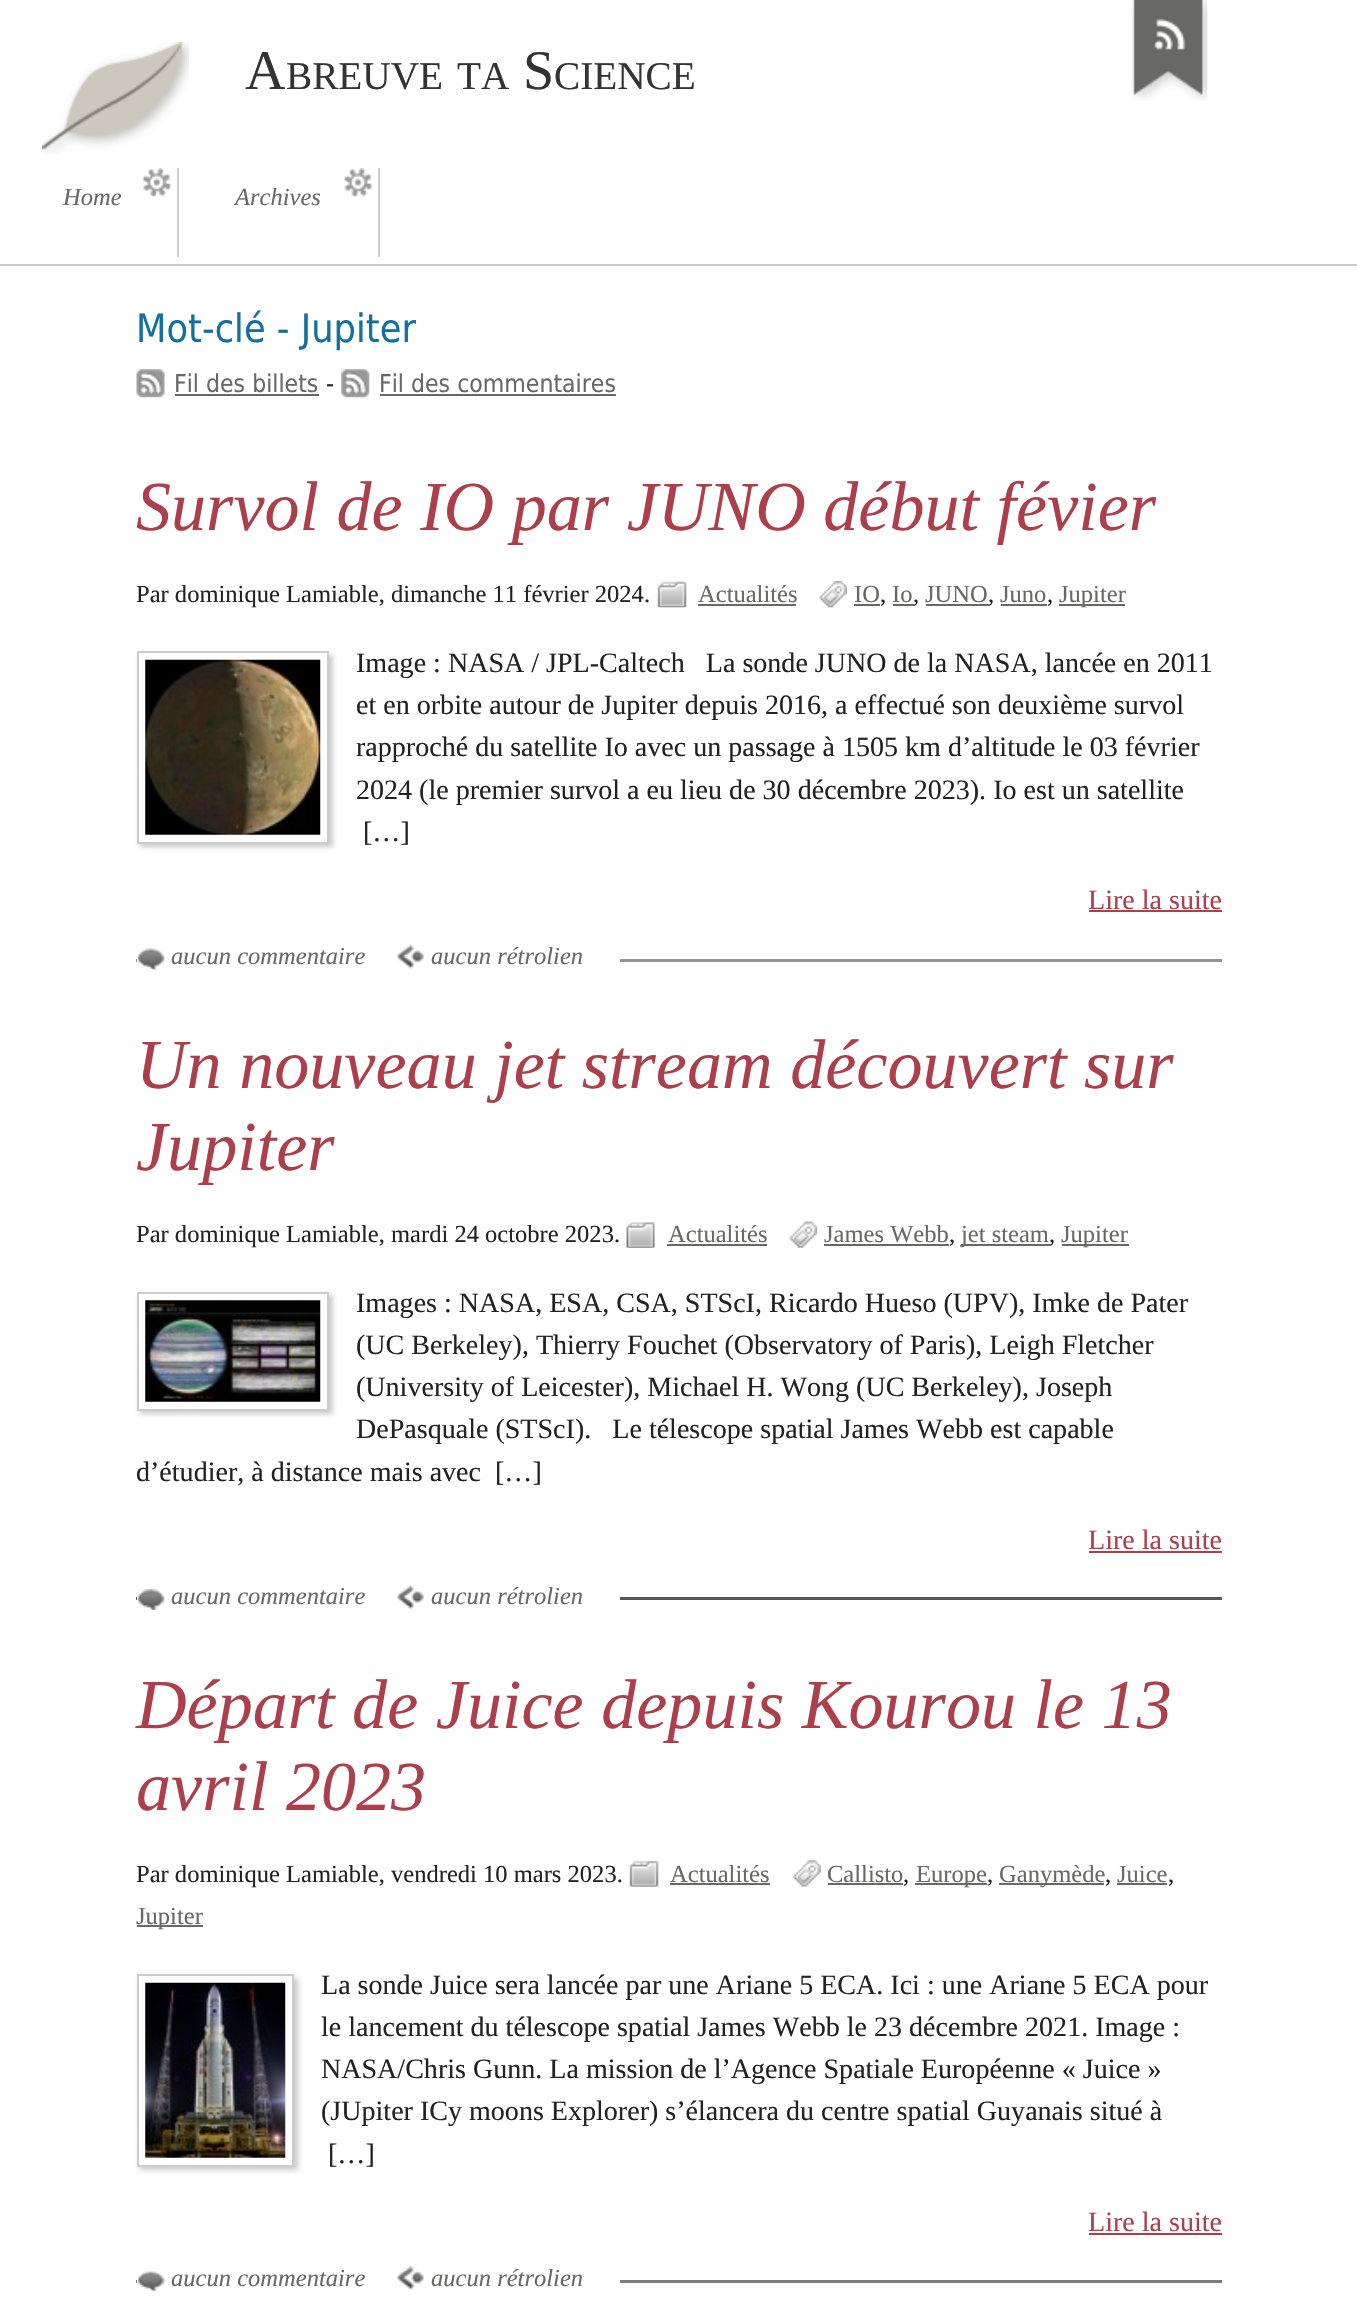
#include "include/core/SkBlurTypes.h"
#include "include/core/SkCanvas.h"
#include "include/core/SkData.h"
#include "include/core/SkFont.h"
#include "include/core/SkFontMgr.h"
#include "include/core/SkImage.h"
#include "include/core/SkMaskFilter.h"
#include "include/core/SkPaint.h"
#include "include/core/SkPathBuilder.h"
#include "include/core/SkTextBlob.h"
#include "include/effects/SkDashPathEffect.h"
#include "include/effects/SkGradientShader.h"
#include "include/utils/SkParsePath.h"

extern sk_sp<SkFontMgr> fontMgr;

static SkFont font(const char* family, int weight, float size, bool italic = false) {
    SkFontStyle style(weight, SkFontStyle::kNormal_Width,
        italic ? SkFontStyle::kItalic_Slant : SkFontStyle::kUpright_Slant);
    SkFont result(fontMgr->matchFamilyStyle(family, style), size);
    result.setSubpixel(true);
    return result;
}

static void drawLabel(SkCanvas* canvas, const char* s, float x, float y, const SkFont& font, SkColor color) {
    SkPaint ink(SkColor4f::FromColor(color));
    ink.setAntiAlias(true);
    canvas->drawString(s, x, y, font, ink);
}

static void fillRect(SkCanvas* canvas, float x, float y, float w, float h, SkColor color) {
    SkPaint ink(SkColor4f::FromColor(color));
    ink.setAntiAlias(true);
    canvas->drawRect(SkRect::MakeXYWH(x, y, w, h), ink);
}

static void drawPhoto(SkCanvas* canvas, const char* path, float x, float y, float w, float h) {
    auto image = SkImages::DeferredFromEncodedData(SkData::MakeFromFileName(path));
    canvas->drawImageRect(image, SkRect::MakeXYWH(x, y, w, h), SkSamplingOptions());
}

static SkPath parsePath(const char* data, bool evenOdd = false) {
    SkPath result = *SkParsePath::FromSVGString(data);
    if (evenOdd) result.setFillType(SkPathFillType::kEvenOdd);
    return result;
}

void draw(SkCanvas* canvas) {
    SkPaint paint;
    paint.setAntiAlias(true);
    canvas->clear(0xFFFFFFFF);
    drawPhoto(canvas, "assets/img1.png", 42, 42, 147, 112);
    SkFont font1 = font("Liberation Serif", 400, 56);
    drawLabel(canvas, "A", 245, 89, font1, 0xFF333333);
    SkFont font2 = font("Liberation Serif", 400, 39.25f);
    drawLabel(canvas, "BREUVE", 286, 89, font2, 0xFF333333);
    drawLabel(canvas, "TA", 457, 89, font2, 0xFF333333);
    drawLabel(canvas, "S", 523, 89, font1, 0xFF333333);
    drawLabel(canvas, "CIENCE", 554, 89, font2, 0xFF333333);
    fillRect(canvas, 0, 264, 1357, 2, 0xFFCCCCCC);
    drawPhoto(canvas, "assets/img2.png", 143, 168, 29, 29);
    fillRect(canvas, 177, 168, 2, 89, 0xFFCCCCCC);
    SkFont font3 = font("Liberation Serif", 400, 24.55f, true);
    drawLabel(canvas, "Home", 63, 205, font3, 0xFF686867);
    drawPhoto(canvas, "assets/img3.png", 344, 168, 29, 29);
    fillRect(canvas, 378, 168, 2, 89, 0xFFCCCCCC);
    drawLabel(canvas, "Archives", 235, 205, font3, 0xFF686867);
    drawPhoto(canvas, "assets/img4.png", 1131, 0, 77, 101);
    SkFont font4 = font("DejaVu Sans", 400, 39.25f);
    drawLabel(canvas, "Mot-clé - Jupiter", 136, 342, font4, 0xFF14709E);
    drawPhoto(canvas, "assets/img5.png", 136, 369, 29, 29);
    SkFont font5 = font("DejaVu Sans", 400, 24.55f);
    drawLabel(canvas, "Fil des billets", 174, 392, font5, 0xFF686867);
    fillRect(canvas, 175, 394, 144, 2, 0xFF686867);
    drawLabel(canvas, "-", 326, 392, font5, 0xFF222222);
    drawPhoto(canvas, "assets/img6.png", 341, 369, 29, 29);
    drawLabel(canvas, "Fil des commentaires", 379, 392, font5, 0xFF686867);
    fillRect(canvas, 380, 394, 236, 2, 0xFF686867);
    fillRect(canvas, 136, 959, 1086, 3, 0xFF939494);
    SkFont font6 = font("Liberation Serif", 400, 70.1f, true);
    drawLabel(canvas, "Survol de IO par JUNO début févier", 136, 530, font6, 0xFFAD3F4C);
    SkFont font7 = font("Liberation Serif", 400, 24.55f);
    drawLabel(canvas, "Par dominique Lamiable, dimanche 11 février 2024.", 136, 602, font7, 0xFF222222);
    drawPhoto(canvas, "assets/img7.png", 657, 581, 30, 27);
    drawLabel(canvas, "Actualités", 698, 602, font7, 0xFF686867);
    fillRect(canvas, 698, 604, 98, 2, 0xFF686867);
    drawPhoto(canvas, "assets/img8.png", 819, 581, 28, 27);
    drawLabel(canvas, "IO", 854, 602, font7, 0xFF686867);
    drawLabel(canvas, ",", 880, 602, font7, 0xFF222222);
    fillRect(canvas, 854, 604, 26, 2, 0xFF686867);
    drawLabel(canvas, "Io", 892, 602, font7, 0xFF686867);
    fillRect(canvas, 893, 604, 21, 2, 0xFF686867);
    drawLabel(canvas, ",", 913, 602, font7, 0xFF222222);
    drawLabel(canvas, "JUNO", 925, 602, font7, 0xFF686867);
    fillRect(canvas, 926, 604, 63, 2, 0xFF686867);
    drawLabel(canvas, ",", 988, 602, font7, 0xFF222222);
    drawLabel(canvas, "Juno", 1000, 602, font7, 0xFF686867);
    drawLabel(canvas, ",", 1047, 602, font7, 0xFF222222);
    fillRect(canvas, 1001, 604, 46, 2, 0xFF686867);
    fillRect(canvas, 1059, 604, 66, 2, 0xFF686867);
    drawLabel(canvas, "Jupiter", 1059, 602, font7, 0xFF686867);
    canvas->save();
    canvas->clipPath(parsePath("M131 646H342V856H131ZM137 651H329V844H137Z", true), true);
    paint.setColor(0xFFCCCCCC);
    paint.setMaskFilter(SkMaskFilter::MakeBlur(kNormal_SkBlurStyle, 2.5f));
    canvas->drawRect(SkRect::MakeXYWH(140, 655, 193, 192), paint);
    paint.setMaskFilter(nullptr);
    canvas->restore();
    paint.setStroke(true);
    paint.setStrokeWidth(2);
    canvas->drawRect(SkRect::MakeXYWH(138, 652, 190, 191), paint);
    drawPhoto(canvas, "assets/img9.png", 145, 659, 176, 176);
    SkFont font8 = font("Liberation Serif", 400, 28.05f);
    drawLabel(canvas, "Image : NASA / JPL-Caltech   La sonde JUNO de la NASA, lancée en 2011", 356, 672, font8, 0xFF222222);
    drawLabel(canvas, "et en orbite autour de Jupiter depuis 2016, a effectué son deuxième survol", 356, 714, font8, 0xFF222222);
    drawLabel(canvas, "rapproché du satellite Io avec un passage à 1505 km d’altitude le 03 février", 356, 756, font8, 0xFF222222);
    drawLabel(canvas, "2024 (le premier survol a eu lieu de 30 décembre 2023). Io est un satellite", 356, 799, font8, 0xFF222222);
    drawLabel(canvas, "[…]", 363, 841, font8, 0xFF222222);
    drawLabel(canvas, "Lire la suite", 1088, 909, font8, 0xFFAD3F4C);
    fillRect(canvas, 1089, 910, 133, 2, 0xFFAD3F4C);
    fillRect(canvas, 137, 959, 483, 3, 0xFFFFFFFF);
    drawPhoto(canvas, "assets/img10.png", 137, 948, 28, 22);
    drawLabel(canvas, "aucun commentaire", 171, 964, font3, 0xFF686867);
    drawPhoto(canvas, "assets/img11.png", 397, 944, 27, 25);
    drawLabel(canvas, "aucun rétrolien", 431, 964, font3, 0xFF686867);
    fillRect(canvas, 136, 1597, 1086, 3, 0xFF575959);
    drawLabel(canvas, "Un nouveau jet stream découvert sur", 136, 1088, font6, 0xFFAD3F4C);
    drawLabel(canvas, "Jupiter", 136, 1170, font6, 0xFFAD3F4C);
    drawLabel(canvas, "Par dominique Lamiable, mardi 24 octobre 2023.", 136, 1242, font7, 0xFF222222);
    drawPhoto(canvas, "assets/img12.png", 626, 1222, 29, 26);
    drawLabel(canvas, "Actualités", 668, 1242, font7, 0xFF686867);
    fillRect(canvas, 667, 1244, 100, 2, 0xFF686867);
    drawPhoto(canvas, "assets/img13.png", 789, 1221, 29, 27);
    drawLabel(canvas, "James Webb", 824, 1242, font7, 0xFF686867);
    drawLabel(canvas, ",", 949, 1242, font7, 0xFF222222);
    fillRect(canvas, 824, 1244, 125, 2, 0xFF686867);
    fillRect(canvas, 961, 1244, 89, 2, 0xFF686867);
    drawLabel(canvas, "jet steam", 961, 1242, font7, 0xFF686867);
    drawLabel(canvas, ",", 1049, 1242, font7, 0xFF222222);
    fillRect(canvas, 1062, 1244, 67, 2, 0xFF686867);
    drawLabel(canvas, "Jupiter", 1061, 1242, font7, 0xFF686867);
    canvas->save();
    canvas->clipPath(parsePath("M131 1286H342V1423H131ZM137 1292H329V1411H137Z", true), true);
    paint.setStroke(false);
    paint.setMaskFilter(SkMaskFilter::MakeBlur(kNormal_SkBlurStyle, 2.5f));
    canvas->drawRect(SkRect::MakeXYWH(140, 1295, 193, 119), paint);
    paint.setMaskFilter(nullptr);
    canvas->restore();
    paint.setStroke(true);
    canvas->drawRect(SkRect::MakeXYWH(138, 1293, 190, 117), paint);
    drawPhoto(canvas, "assets/img14.png", 145, 1300, 176, 102);
    drawLabel(canvas, "Images : NASA, ESA, CSA, STScI, Ricardo Hueso (UPV), Imke de Pater", 356, 1312, font8, 0xFF222222);
    drawLabel(canvas, "(UC Berkeley), Thierry Fouchet (Observatory of Paris), Leigh Fletcher", 356, 1354, font8, 0xFF222222);
    drawLabel(canvas, "(University of Leicester), Michael H. Wong (UC Berkeley), Joseph", 356, 1396, font8, 0xFF222222);
    drawLabel(canvas, "DePasquale (STScI).   Le télescope spatial James Webb est capable", 356, 1438, font8, 0xFF222222);
    drawLabel(canvas, "d’étudier, à distance mais avec", 136, 1481, font8, 0xFF222222);
    drawLabel(canvas, "[…]", 495, 1481, font8, 0xFF222222);
    drawLabel(canvas, "Lire la suite", 1088, 1549, font8, 0xFFAD3F4C);
    fillRect(canvas, 1089, 1551, 133, 2, 0xFFAD3F4C);
    fillRect(canvas, 137, 1597, 483, 3, 0xFFFFFFFF);
    drawPhoto(canvas, "assets/img15.png", 137, 1589, 28, 21);
    drawLabel(canvas, "aucun commentaire", 171, 1604, font3, 0xFF686867);
    drawPhoto(canvas, "assets/img16.png", 397, 1584, 27, 26);
    drawLabel(canvas, "aucun rétrolien", 431, 1604, font3, 0xFF686867);
    fillRect(canvas, 136, 2280, 1086, 3, 0xFF7B7D7D);
    drawLabel(canvas, "Départ de Juice depuis Kourou le 13", 136, 1728, font6, 0xFFAD3F4C);
    drawLabel(canvas, "avril 2023", 136, 1810, font6, 0xFFAD3F4C);
    drawLabel(canvas, "Par dominique Lamiable, vendredi 10 mars 2023.", 136, 1882, font7, 0xFF222222);
    drawPhoto(canvas, "assets/img17.png", 629, 1860, 30, 27);
    drawLabel(canvas, "Actualités", 670, 1882, font7, 0xFF686867);
    fillRect(canvas, 670, 1883, 100, 2, 0xFF686867);
    drawPhoto(canvas, "assets/img18.png", 792, 1860, 29, 27);
    drawLabel(canvas, "Callisto", 827, 1882, font7, 0xFF686867);
    drawLabel(canvas, ",", 903, 1882, font7, 0xFF222222);
    fillRect(canvas, 828, 1883, 75, 2, 0xFF686867);
    fillRect(canvas, 915, 1883, 72, 2, 0xFF686867);
    drawLabel(canvas, "Europe", 916, 1882, font7, 0xFF686867);
    drawLabel(canvas, ",", 987, 1882, font7, 0xFF222222);
    fillRect(canvas, 999, 1883, 105, 2, 0xFF686867);
    drawLabel(canvas, "Ganymède", 999, 1882, font7, 0xFF686867);
    drawLabel(canvas, ",", 1105, 1882, font7, 0xFF222222);
    drawLabel(canvas, "Juice", 1117, 1882, font7, 0xFF686867);
    drawLabel(canvas, ",", 1168, 1882, font7, 0xFF222222);
    fillRect(canvas, 1117, 1883, 50, 2, 0xFF686867);
    fillRect(canvas, 137, 1925, 66, 2, 0xFF686867);
    drawLabel(canvas, "Jupiter", 136, 1924, font7, 0xFF686867);
    canvas->save();
    canvas->clipPath(parsePath("M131 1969H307V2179H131ZM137 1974H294V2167H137Z", true), true);
    paint.setStroke(false);
    paint.setMaskFilter(SkMaskFilter::MakeBlur(kNormal_SkBlurStyle, 2.5f));
    canvas->drawRect(SkRect::MakeXYWH(140, 1978, 158, 192), paint);
    paint.setMaskFilter(nullptr);
    canvas->restore();
    paint.setStroke(true);
    canvas->drawRect(SkRect::MakeXYWH(138, 1975, 155, 191), paint);
    drawPhoto(canvas, "assets/img19.png", 145, 1982, 141, 176);
    drawLabel(canvas, "La sonde Juice sera lancée par une Ariane 5 ECA. Ici : une Ariane 5 ECA pour", 321, 1994, font8, 0xFF222222);
    drawLabel(canvas, "le lancement du télescope spatial James Webb le 23 décembre 2021. Image :", 321, 2036, font8, 0xFF222222);
    drawLabel(canvas, "NASA/Chris Gunn. La mission de l’Agence Spatiale Européenne « Juice »", 321, 2078, font8, 0xFF222222);
    drawLabel(canvas, "(JUpiter ICy moons Explorer) s’élancera du centre spatial Guyanais situé à", 321, 2120, font8, 0xFF222222);
    drawLabel(canvas, "[…]", 328, 2163, font8, 0xFF222222);
    drawLabel(canvas, "Lire la suite", 1088, 2231, font8, 0xFFAD3F4C);
    fillRect(canvas, 1089, 2233, 133, 2, 0xFFAD3F4C);
    fillRect(canvas, 137, 2280, 483, 3, 0xFFFFFFFF);
    drawPhoto(canvas, "assets/img20.png", 137, 2271, 28, 20);
    drawLabel(canvas, "aucun commentaire", 171, 2286, font3, 0xFF686867);
    drawPhoto(canvas, "assets/img21.png", 397, 2265, 27, 26);
    drawLabel(canvas, "aucun rétrolien", 431, 2286, font3, 0xFF686867);
}
